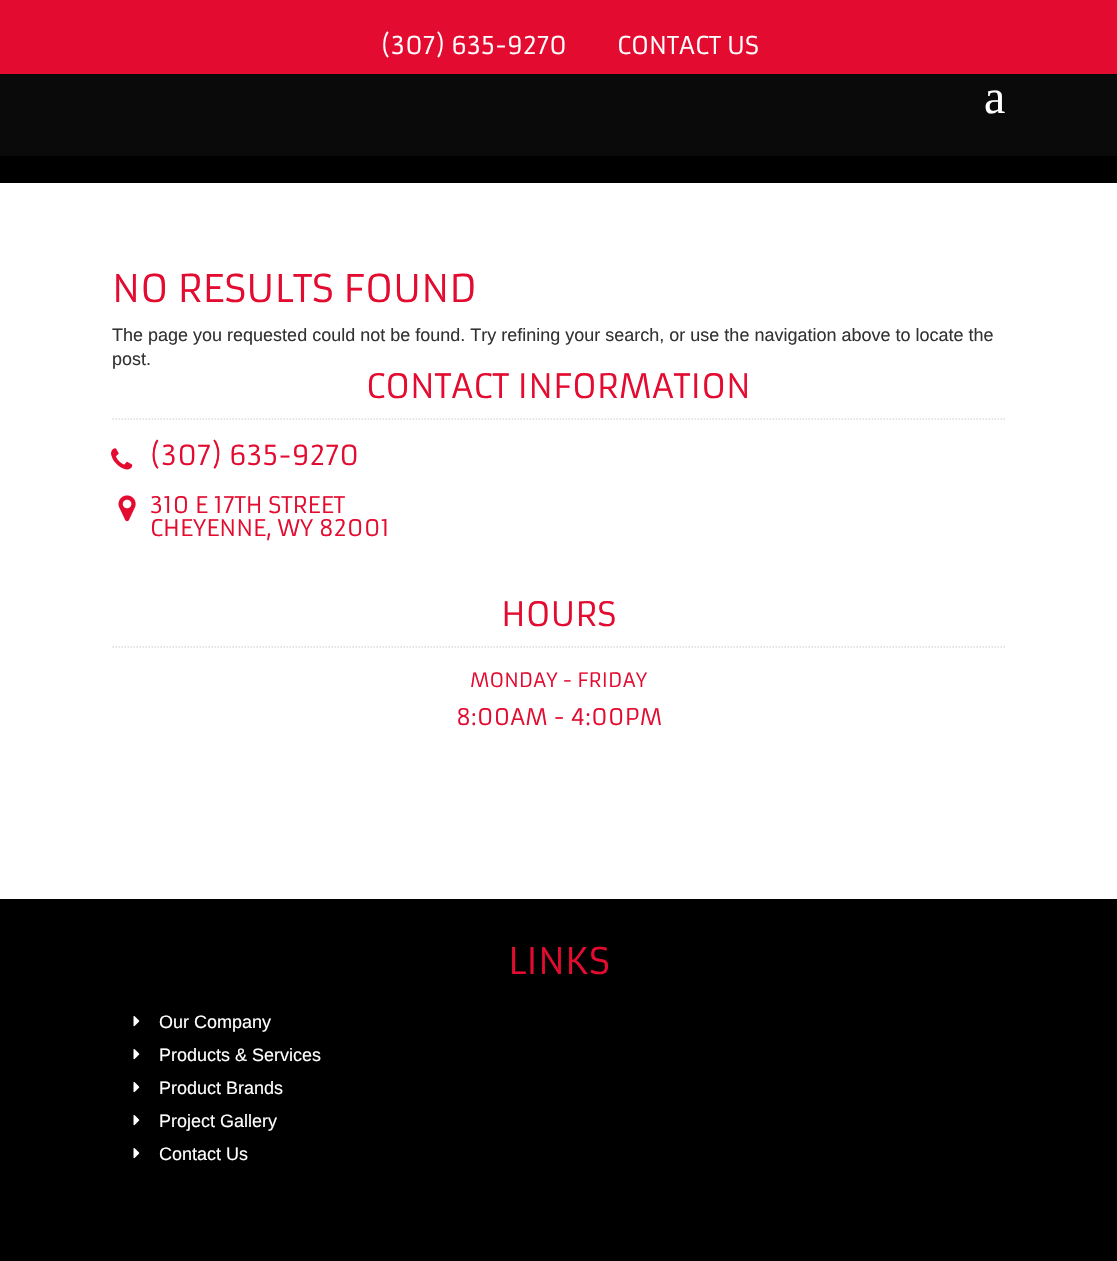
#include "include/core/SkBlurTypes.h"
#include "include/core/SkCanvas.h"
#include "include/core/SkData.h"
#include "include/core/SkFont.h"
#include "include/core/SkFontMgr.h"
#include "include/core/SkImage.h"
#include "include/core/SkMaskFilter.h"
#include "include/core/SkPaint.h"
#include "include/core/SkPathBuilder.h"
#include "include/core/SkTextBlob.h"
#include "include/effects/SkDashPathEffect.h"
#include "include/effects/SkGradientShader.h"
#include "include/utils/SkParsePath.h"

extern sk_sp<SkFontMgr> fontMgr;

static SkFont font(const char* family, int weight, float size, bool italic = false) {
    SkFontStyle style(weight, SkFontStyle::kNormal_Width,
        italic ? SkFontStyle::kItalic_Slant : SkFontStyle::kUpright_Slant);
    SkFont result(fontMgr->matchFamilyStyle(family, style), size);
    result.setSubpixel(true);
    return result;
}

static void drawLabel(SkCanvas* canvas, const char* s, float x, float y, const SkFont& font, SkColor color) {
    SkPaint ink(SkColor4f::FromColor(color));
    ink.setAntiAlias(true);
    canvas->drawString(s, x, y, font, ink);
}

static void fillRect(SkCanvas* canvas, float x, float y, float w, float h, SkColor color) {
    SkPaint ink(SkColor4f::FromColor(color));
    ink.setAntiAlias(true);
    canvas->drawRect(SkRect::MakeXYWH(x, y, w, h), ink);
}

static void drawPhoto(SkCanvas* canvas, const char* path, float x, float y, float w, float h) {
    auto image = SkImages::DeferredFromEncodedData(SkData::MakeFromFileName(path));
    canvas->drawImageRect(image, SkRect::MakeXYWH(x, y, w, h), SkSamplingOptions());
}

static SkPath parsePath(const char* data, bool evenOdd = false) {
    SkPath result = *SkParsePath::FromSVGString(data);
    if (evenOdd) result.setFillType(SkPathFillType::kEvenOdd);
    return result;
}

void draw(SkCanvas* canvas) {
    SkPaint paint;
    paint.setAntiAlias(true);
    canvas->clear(0xFF000000);
    fillRect(canvas, 0, 0, 1117, 74, 0xFFE30B30);
    SkFont font1 = font("Armata", 400, 24);
    drawLabel(canvas, "(307) 635-9270", 381, 54, font1, 0xFFFFFFFF);
    drawLabel(canvas, "CONTACT US", 617, 54, font1, 0xFFFFFFFF);
    fillRect(canvas, 0, 74, 1117, 82, 0xFF0A0A0A);
    SkFont font2 = font("Liberation Serif", 400, 48);
    drawLabel(canvas, "a", 984, 113, font2, 0xFFFFFFFF);
    fillRect(canvas, 0, 183, 1117, 716, 0xFFFFFFFF);
    SkFont font3 = font("Armata", 400, 37.5f);
    drawLabel(canvas, "NO RESULTS FOUND", 112, 302, font3, 0xFFE30B30);
    SkFont font4 = font("Liberation Sans", 400, 18);
    drawLabel(canvas, "The page you requested could not be found. Try refining your search, or use the navigation above to locate the", 112, 341, font4, 0xFF333333);
    drawLabel(canvas, "post.", 112, 365, font4, 0xFF333333);
    paint.setStroke(true);
    paint.setStrokeWidth(1.5f);
    paint.setColor(0xFFDDDDDD);
    paint.setPathEffect(SkDashPathEffect::Make({{1.5f, 1.5f}}, 0));
    canvas->drawPath(parsePath("M112.5 419H1006.5"), paint);
    paint.setPathEffect(nullptr);
    SkFont font5 = font("Armata", 400, 33);
    drawLabel(canvas, "CONTACT INFORMATION", 366, 398, font5, 0xFFE30B30);
    drawPhoto(canvas, "assets/img1.png", 111, 448, 22, 22);
    SkFont font6 = font("Armata", 400, 27);
    drawLabel(canvas, "(307) 635-9270", 150, 465, font6, 0xFFE30B30);
    drawPhoto(canvas, "assets/img2.png", 118, 495, 18, 27);
    SkFont font7 = font("Armata", 400, 22.5f);
    drawLabel(canvas, "310 E 17TH STREET", 150, 513, font7, 0xFFE30B30);
    drawLabel(canvas, "CHEYENNE, WY 82001", 150, 536, font7, 0xFFE30B30);
    paint.setPathEffect(SkDashPathEffect::Make({{1.5f, 1.5f}}, 0));
    canvas->drawPath(parsePath("M112.5 647H1006.5"), paint);
    paint.setPathEffect(nullptr);
    drawLabel(canvas, "HOURS", 501, 626, font5, 0xFFE30B30);
    SkFont font8 = font("Armata", 400, 19.5f);
    drawLabel(canvas, "MONDAY - FRIDAY", 470, 687, font8, 0xFFE30B30);
    drawLabel(canvas, "8:00AM - 4:00PM", 456, 725, font7, 0xFFE30B30);
    SkFont font9 = font("Armata", 400, 36);
    drawLabel(canvas, "LINKS", 508, 974, font9, 0xFFE30B30);
    drawPhoto(canvas, "assets/img3.png", 133, 1016, 7, 11);
    drawLabel(canvas, "Our Company", 159, 1028, font4, 0xFFFFFFFF);
    drawPhoto(canvas, "assets/img3.png", 133, 1049, 7, 11);
    drawLabel(canvas, "Products & Services", 159, 1061, font4, 0xFFFFFFFF);
    drawPhoto(canvas, "assets/img3.png", 133, 1082, 7, 11);
    drawLabel(canvas, "Product Brands", 159, 1094, font4, 0xFFFFFFFF);
    drawPhoto(canvas, "assets/img3.png", 133, 1115, 7, 11);
    drawLabel(canvas, "Project Gallery", 159, 1127, font4, 0xFFFFFFFF);
    drawPhoto(canvas, "assets/img3.png", 133, 1148, 7, 11);
    drawLabel(canvas, "Contact Us", 159, 1160, font4, 0xFFFFFFFF);
}
